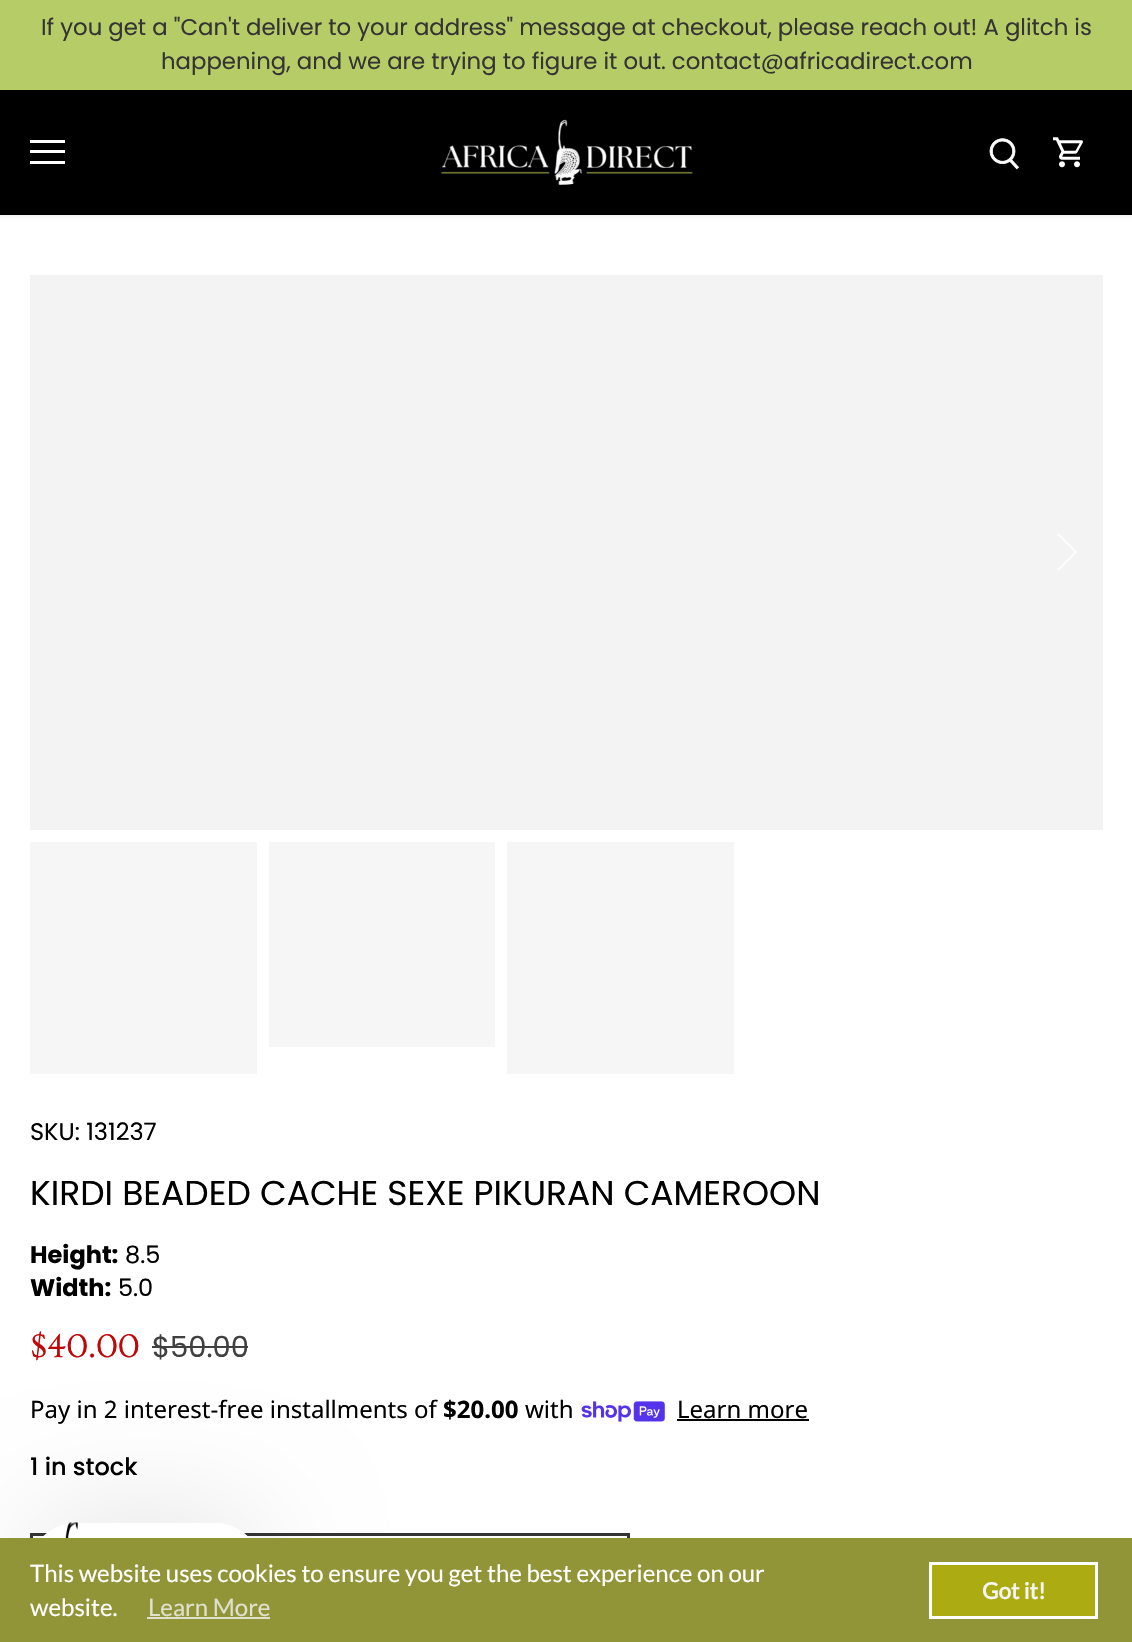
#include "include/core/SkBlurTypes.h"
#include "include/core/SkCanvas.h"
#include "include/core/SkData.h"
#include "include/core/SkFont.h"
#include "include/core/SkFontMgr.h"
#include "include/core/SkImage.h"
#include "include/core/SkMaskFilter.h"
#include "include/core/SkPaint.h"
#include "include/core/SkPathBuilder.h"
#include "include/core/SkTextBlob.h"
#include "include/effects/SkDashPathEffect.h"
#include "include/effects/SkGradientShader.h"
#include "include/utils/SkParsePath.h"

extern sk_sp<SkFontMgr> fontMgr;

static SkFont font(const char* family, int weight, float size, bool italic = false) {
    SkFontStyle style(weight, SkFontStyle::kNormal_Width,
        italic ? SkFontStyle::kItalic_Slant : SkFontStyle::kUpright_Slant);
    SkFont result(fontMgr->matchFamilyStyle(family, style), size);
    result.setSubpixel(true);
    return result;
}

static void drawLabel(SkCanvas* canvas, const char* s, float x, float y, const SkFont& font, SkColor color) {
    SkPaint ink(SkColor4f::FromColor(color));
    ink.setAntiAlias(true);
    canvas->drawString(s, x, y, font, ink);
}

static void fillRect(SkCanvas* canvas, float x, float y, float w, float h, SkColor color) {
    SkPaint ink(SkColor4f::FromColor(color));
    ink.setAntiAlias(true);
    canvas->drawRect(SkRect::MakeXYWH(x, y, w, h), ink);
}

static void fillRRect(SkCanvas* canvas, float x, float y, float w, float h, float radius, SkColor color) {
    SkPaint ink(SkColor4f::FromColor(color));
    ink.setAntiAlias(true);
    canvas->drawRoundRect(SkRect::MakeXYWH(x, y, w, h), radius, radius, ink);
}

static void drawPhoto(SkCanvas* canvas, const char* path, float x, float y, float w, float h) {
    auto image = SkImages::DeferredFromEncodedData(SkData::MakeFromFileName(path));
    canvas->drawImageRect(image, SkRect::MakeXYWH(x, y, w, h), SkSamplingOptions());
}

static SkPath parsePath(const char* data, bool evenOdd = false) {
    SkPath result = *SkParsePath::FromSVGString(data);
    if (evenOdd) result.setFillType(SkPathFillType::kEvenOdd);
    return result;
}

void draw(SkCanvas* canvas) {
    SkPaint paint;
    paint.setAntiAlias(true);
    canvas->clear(0xFFFFFFFF);
    paint.setColor(0x14000000);
    paint.setMaskFilter(SkMaskFilter::MakeBlur(kNormal_SkBlurStyle, 2));
    canvas->drawRect(SkRect::MakeXYWH(-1, 89, 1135, 127), paint);
    paint.setMaskFilter(nullptr);
    fillRect(canvas, 0, 0, 1132, 90, 0xFFB6CC67);
    SkFont font1 = font("Poppins", 400, 22.8f);
    drawLabel(canvas, "If you get a \"Can't deliver to your address\" message at checkout, please reach out! A glitch is", 41, 35, font1, 0xFF343434);
    drawLabel(canvas, "happening, and we are trying to figure it out. contact@africadirect.com", 161, 69, font1, 0xFF343434);
    fillRect(canvas, 0, 90, 1132, 125, 0xFF000000);
    fillRect(canvas, 30, 140, 35, 3, 0xFFFFFFFF);
    fillRect(canvas, 30, 150, 35, 3, 0xFFFFFFFF);
    fillRect(canvas, 30, 161, 35, 3, 0xFFFFFFFF);
    drawPhoto(canvas, "assets/img1.png", 441, 119, 252, 66);
    drawPhoto(canvas, "assets/img2.png", 989, 138, 30, 32);
    drawPhoto(canvas, "assets/img3.png", 1053, 137, 30, 31);
    fillRect(canvas, 30, 275, 1073, 555, 0xFFF3F3F3);
    paint.setColor(0xFFFCFCFC);
    canvas->drawPath(parsePath("M1059 533L1057 535L1074.5 552L1057 569L1059 571L1077.5 552Z"), paint);
    fillRect(canvas, 30, 842, 227, 232, 0xFFF6F6F6);
    fillRect(canvas, 269, 842, 226, 205, 0xFFF6F6F6);
    fillRect(canvas, 507, 842, 227, 232, 0xFFF6F6F6);
    SkFont font2 = font("Poppins", 400, 24);
    drawLabel(canvas, "SKU: 131237", 30, 1140, font2, 0xFF000000);
    SkFont font3 = font("Poppins", 400, 34.5f);
    drawLabel(canvas, "KIRDI BEADED CACHE SEXE PIKURAN CAMEROON", 30, 1205, font3, 0xFF000000);
    SkFont font4 = font("Poppins", 700, 24);
    drawLabel(canvas, "Height:", 30, 1263, font4, 0xFF000000);
    drawLabel(canvas, "8.5", 125, 1263, font2, 0xFF000000);
    drawLabel(canvas, "Width:", 30, 1296, font4, 0xFF000000);
    drawLabel(canvas, "5.0", 118, 1296, font2, 0xFF000000);
    SkFont font5 = font("Ovo", 400, 34.5f);
    drawLabel(canvas, "$40.00", 30, 1357, font5, 0xFFC00606);
    SkFont font6 = font("Poppins", 400, 29);
    drawLabel(canvas, "$50.00", 152, 1357, font6, 0xFF404040);
    fillRect(canvas, 152, 1346, 96, 2, 0xFF404040);
    SkFont font7 = font("Noto Sans", 400, 24);
    drawLabel(canvas, "Pay in 2 interest-free installments of", 30, 1418, font7, 0xFF000000);
    SkFont font8 = font("Noto Sans", 700, 24);
    drawLabel(canvas, "$20.00", 443, 1418, font8, 0xFF000000);
    drawLabel(canvas, "with", 525, 1418, font7, 0xFF000000);
    drawPhoto(canvas, "assets/img4.png", 581, 1401, 84, 21);
    drawLabel(canvas, "Learn more", 677, 1418, font7, 0xFF000000);
    fillRect(canvas, 677, 1419, 132, 2, 0xFF000000);
    SkFont font9 = font("Poppins", 500, 24);
    drawLabel(canvas, "1 in stock", 30, 1475, font9, 0xFF000000);
    paint.setStroke(true);
    paint.setStrokeWidth(3);
    paint.setColor(0xFF343434);
    canvas->drawRect(SkRect::MakeXYWH(31.5f, 1534.5f, 597, 63), paint);
    paint.setStroke(false);
    paint.setColor(0x1F000000);
    paint.setMaskFilter(SkMaskFilter::MakeBlur(kNormal_SkBlurStyle, 60));
    canvas->drawRoundRect(SkRect::MakeXYWH(30, 1523, 231, 90), 45, 45, paint);
    paint.setMaskFilter(nullptr);
    fillRRect(canvas, 30, 1523, 231, 90, 45, 0xFFFFFFFF);
    drawPhoto(canvas, "assets/img5.png", 65, 1522, 13, 16);
    fillRect(canvas, 0, 1538, 1132, 104, 0xFF919537);
    SkFont font10 = font("Lato", 400, 24);
    drawLabel(canvas, "This website uses cookies to ensure you get the best experience on our", 30, 1582, font10, 0xFFFFFFFF);
    drawLabel(canvas, "website.", 30, 1616, font10, 0xFFFFFFFF);
    drawLabel(canvas, "Learn More", 148, 1616, font10, 0xFFDFE0CD);
    fillRect(canvas, 147, 1617, 123, 2, 0xFFDFE0CD);
    paint.setColor(0xFFACAC12);
    canvas->drawRect(SkRect::MakeXYWH(930.5f, 1563.5f, 166, 54), paint);
    paint.setStroke(true);
    paint.setColor(0xFFFFFFFF);
    canvas->drawRect(SkRect::MakeXYWH(930.5f, 1563.5f, 166, 54), paint);
    SkFont font11 = font("Lato", 700, 22.5f);
    drawLabel(canvas, "Got it!", 982, 1599, font11, 0xFFF5F5F5);
}
